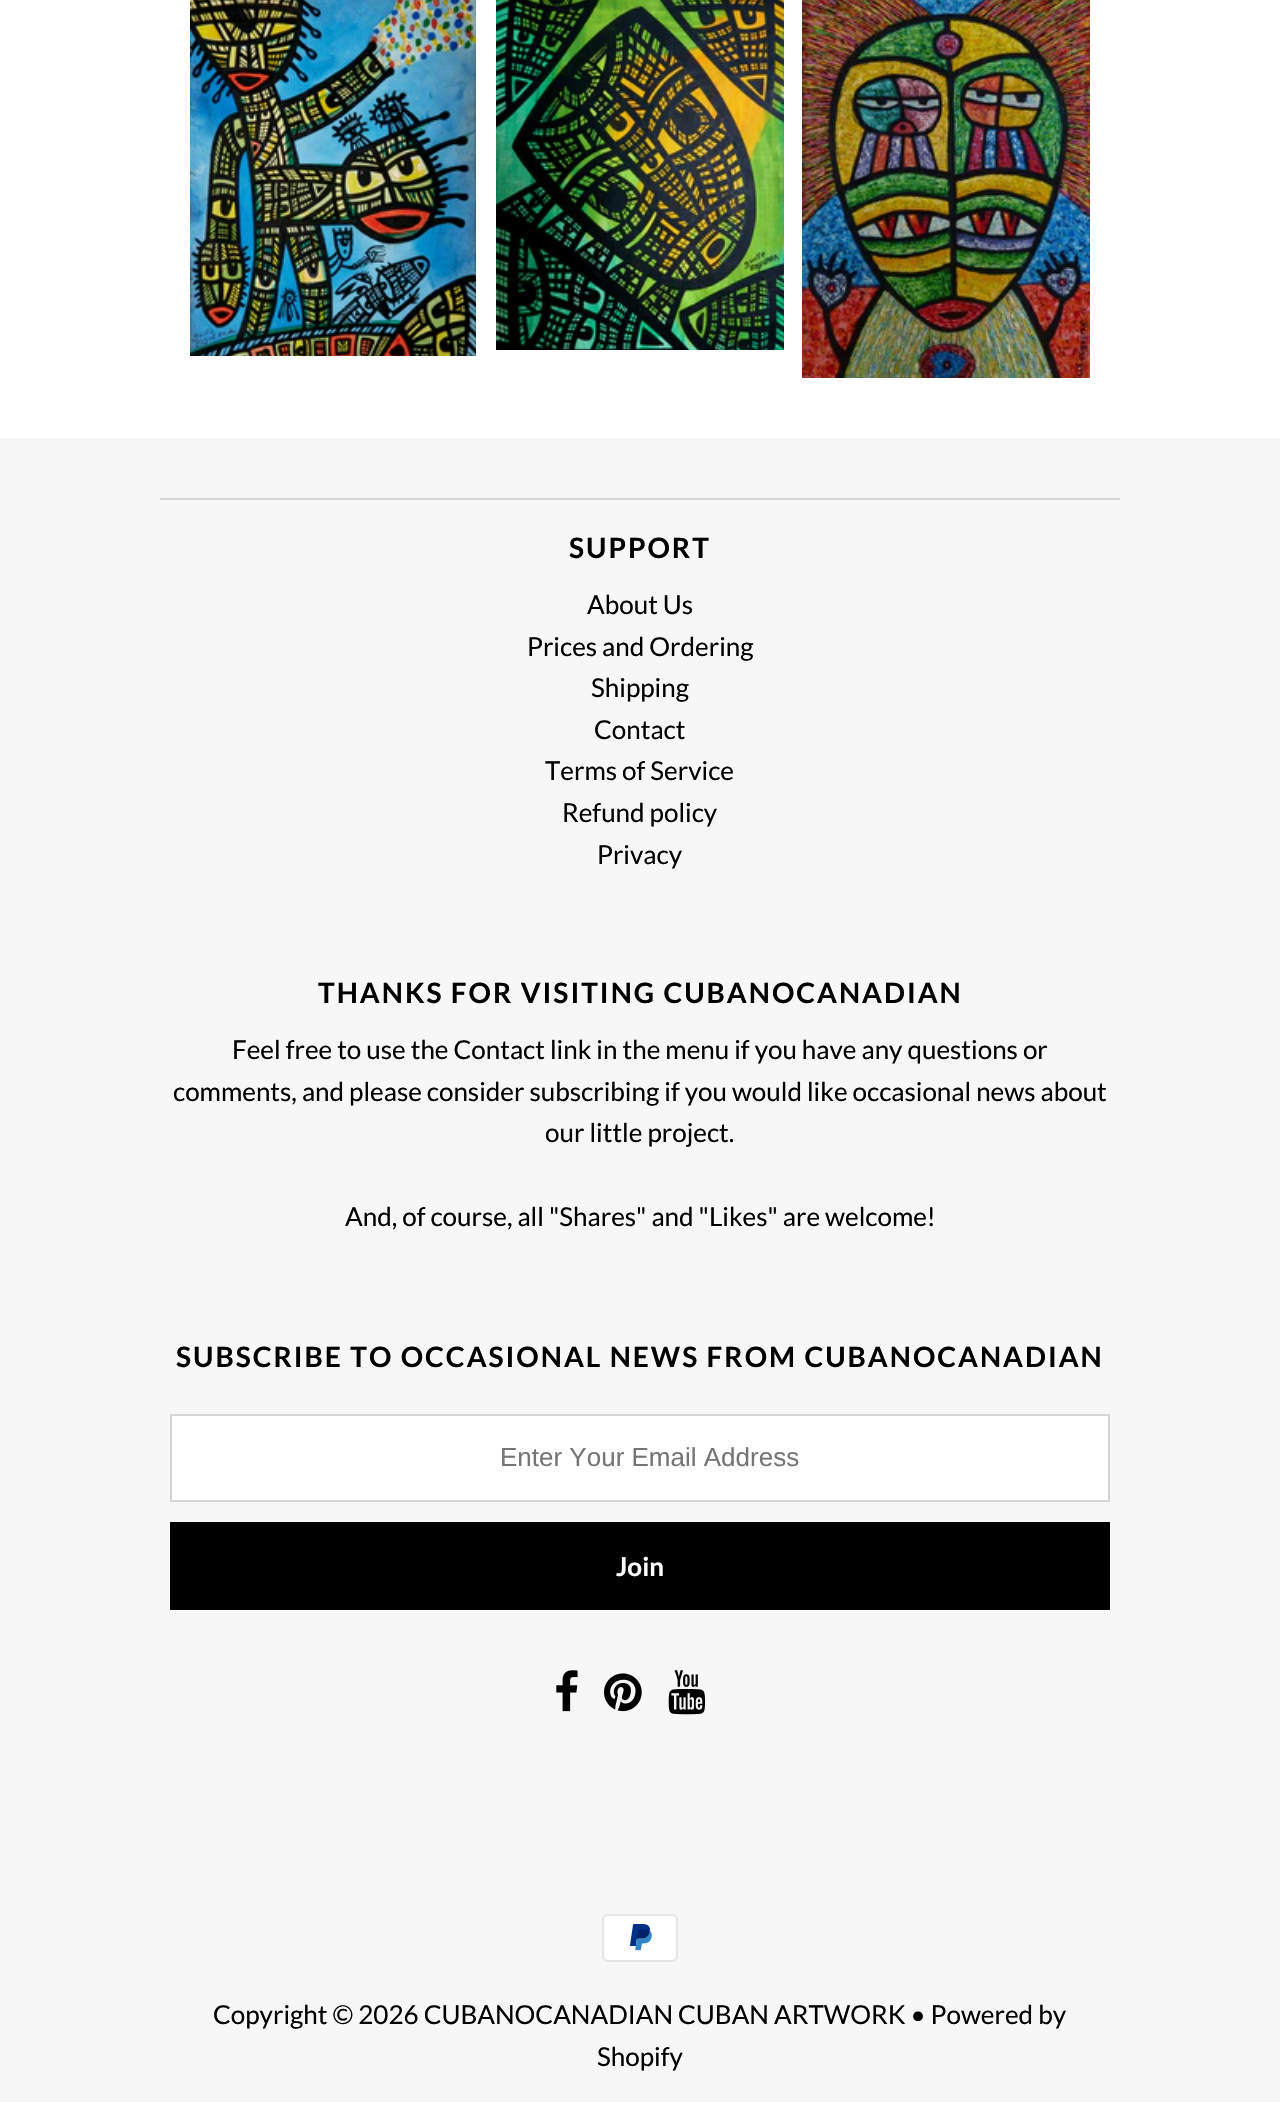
#include "include/core/SkBlurTypes.h"
#include "include/core/SkCanvas.h"
#include "include/core/SkData.h"
#include "include/core/SkFont.h"
#include "include/core/SkFontMgr.h"
#include "include/core/SkImage.h"
#include "include/core/SkMaskFilter.h"
#include "include/core/SkPaint.h"
#include "include/core/SkPathBuilder.h"
#include "include/core/SkTextBlob.h"
#include "include/effects/SkDashPathEffect.h"
#include "include/effects/SkGradientShader.h"
#include "include/utils/SkParsePath.h"

extern sk_sp<SkFontMgr> fontMgr;

static SkFont font(const char* family, int weight, float size, bool italic = false) {
    SkFontStyle style(weight, SkFontStyle::kNormal_Width,
        italic ? SkFontStyle::kItalic_Slant : SkFontStyle::kUpright_Slant);
    SkFont result(fontMgr->matchFamilyStyle(family, style), size);
    result.setSubpixel(true);
    return result;
}

static void drawLabel(SkCanvas* canvas, const char* s, float x, float y, const SkFont& font, SkColor color) {
    SkPaint ink(SkColor4f::FromColor(color));
    ink.setAntiAlias(true);
    canvas->drawString(s, x, y, font, ink);
}

static void drawTracked(SkCanvas* canvas, const char* s, float x, float y, const SkFont& font, const SkPaint& ink, float letter, float word) {
    std::vector<SkGlyphID> glyphs(font.countText(s, strlen(s), SkTextEncoding::kUTF8));
    std::vector<float> xs(glyphs.size());
    font.textToGlyphs(s, strlen(s), SkTextEncoding::kUTF8, glyphs);
    font.getXPos(glyphs, xs, x);
    float extra = 0;
    for (size_t i = 0; i < glyphs.size(); i++) {
        xs[i] += extra;
        extra += letter + word * (glyphs[i] == font.unicharToGlyph(' '));
    }
    canvas->drawTextBlob(SkTextBlob::MakeFromPosHGlyphs(glyphs, xs, y, font), 0, 0, ink);
}

static void fillRect(SkCanvas* canvas, float x, float y, float w, float h, SkColor color) {
    SkPaint ink(SkColor4f::FromColor(color));
    ink.setAntiAlias(true);
    canvas->drawRect(SkRect::MakeXYWH(x, y, w, h), ink);
}

static void drawPhoto(SkCanvas* canvas, const char* path, float x, float y, float w, float h) {
    auto image = SkImages::DeferredFromEncodedData(SkData::MakeFromFileName(path));
    canvas->drawImageRect(image, SkRect::MakeXYWH(x, y, w, h), SkSamplingOptions());
}

void draw(SkCanvas* canvas) {
    SkPaint paint;
    paint.setAntiAlias(true);
    canvas->clear(0xFFFFFFFF);
    drawPhoto(canvas, "assets/img1.png", 190, 0, 286, 356);
    drawPhoto(canvas, "assets/img2.png", 496, 0, 288, 350);
    drawPhoto(canvas, "assets/img3.png", 802, 0, 288, 378);
    fillRect(canvas, 0, 438, 1280, 1664, 0xFFF7F7F7);
    fillRect(canvas, 160, 498, 960, 2, 0xFFD5D5D5);
    SkFont font1 = font("Lato", 700, 28);
    paint.setColor(0xFF000000);
    drawTracked(canvas, "SUPPORT", 569, 558, font1, paint, 2, 0);
    SkFont font2 = font("Lato", 400, 26);
    drawLabel(canvas, "About Us", 587, 614, font2, 0xFF000000);
    drawLabel(canvas, "Prices and Ordering", 527, 656, font2, 0xFF000000);
    drawLabel(canvas, "Shipping", 591, 697, font2, 0xFF000000);
    drawLabel(canvas, "Contact", 594, 739, font2, 0xFF000000);
    drawLabel(canvas, "Terms of Service", 545, 780, font2, 0xFF000000);
    drawLabel(canvas, "Refund policy", 562, 822, font2, 0xFF000000);
    drawLabel(canvas, "Privacy", 597, 864, font2, 0xFF000000);
    drawTracked(canvas, "THANKS FOR VISITING CUBANOCANADIAN", 318, 1003, font1, paint, 2, 0);
    drawLabel(canvas, "Feel free to use the Contact link in the menu if you have any questions or", 232, 1059, font2, 0xFF000000);
    drawLabel(canvas, "comments, and please consider subscribing if you would like occasional news about", 173, 1101, font2, 0xFF000000);
    drawLabel(canvas, "our little project.", 545, 1142, font2, 0xFF000000);
    drawLabel(canvas, "And, of course, all \"Shares\" and \"Likes\" are welcome!", 345, 1226, font2, 0xFF000000);
    drawTracked(canvas, "SUBSCRIBE TO OCCASIONAL NEWS FROM CUBANOCANADIAN", 176, 1367, font1, paint, 2, 0);
    paint.setColor(0xFFFFFFFF);
    canvas->drawRect(SkRect::MakeXYWH(171, 1415, 938, 86), paint);
    paint.setStroke(true);
    paint.setStrokeWidth(2);
    paint.setColor(0xFFD5D5D5);
    canvas->drawRect(SkRect::MakeXYWH(171, 1415, 938, 86), paint);
    SkFont font3 = font("Liberation Sans", 400, 26);
    drawLabel(canvas, "Enter Your Email Address", 500, 1466, font3, 0xFF757575);
    fillRect(canvas, 170, 1522, 940, 88, 0xFF000000);
    SkFont font4 = font("Lato", 700, 26);
    drawLabel(canvas, "Join", 616, 1576, font4, 0xFFFFFFFF);
    drawPhoto(canvas, "assets/img4.png", 556, 1670, 22, 42);
    drawPhoto(canvas, "assets/img5.png", 604, 1673, 38, 39);
    drawPhoto(canvas, "assets/img6.png", 668, 1670, 38, 45);
    drawPhoto(canvas, "assets/img7.png", 602, 1914, 76, 48);
    drawLabel(canvas, "Copyright © 2026 CUBANOCANADIAN CUBAN ARTWORK • Powered by", 213, 2024, font2, 0xFF000000);
    drawLabel(canvas, "Shopify", 597, 2066, font2, 0xFF000000);
}
